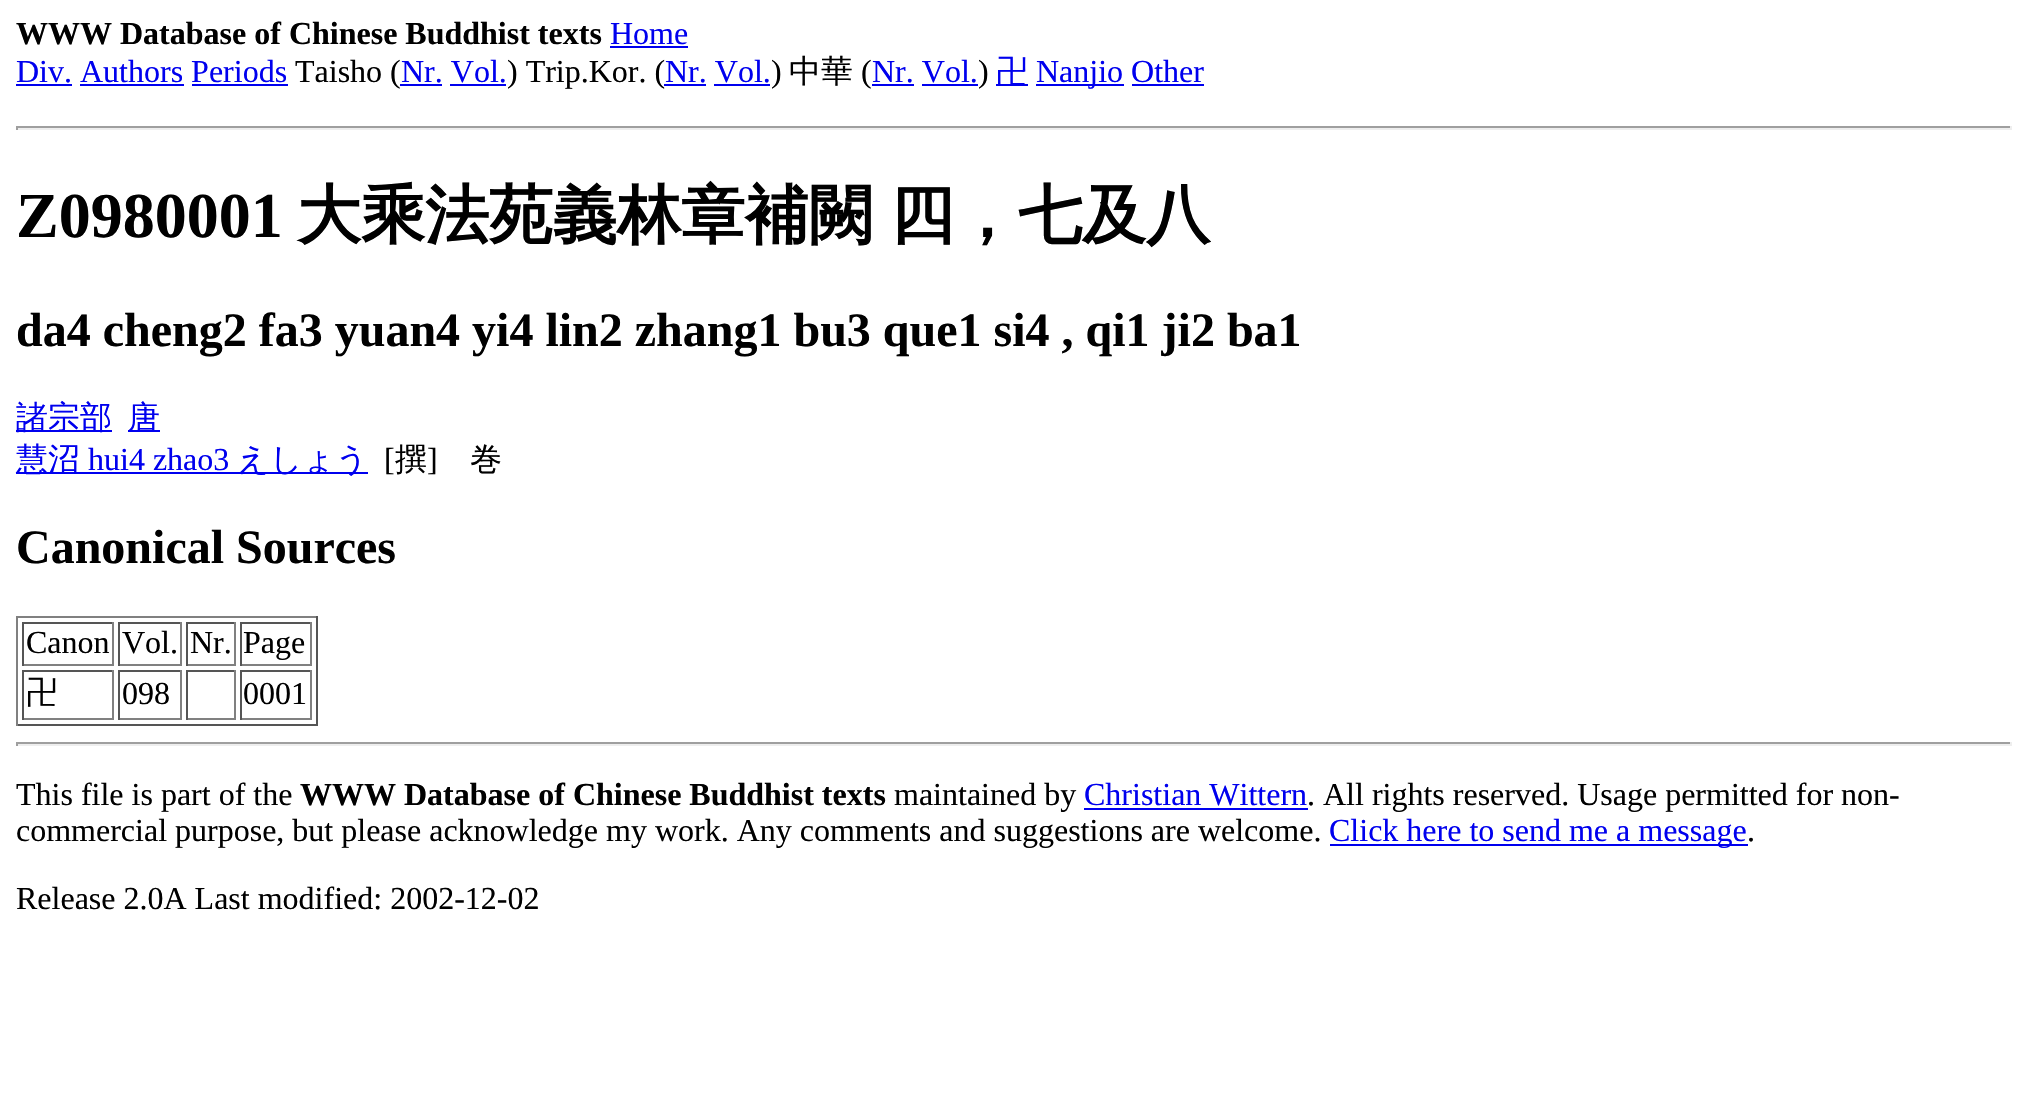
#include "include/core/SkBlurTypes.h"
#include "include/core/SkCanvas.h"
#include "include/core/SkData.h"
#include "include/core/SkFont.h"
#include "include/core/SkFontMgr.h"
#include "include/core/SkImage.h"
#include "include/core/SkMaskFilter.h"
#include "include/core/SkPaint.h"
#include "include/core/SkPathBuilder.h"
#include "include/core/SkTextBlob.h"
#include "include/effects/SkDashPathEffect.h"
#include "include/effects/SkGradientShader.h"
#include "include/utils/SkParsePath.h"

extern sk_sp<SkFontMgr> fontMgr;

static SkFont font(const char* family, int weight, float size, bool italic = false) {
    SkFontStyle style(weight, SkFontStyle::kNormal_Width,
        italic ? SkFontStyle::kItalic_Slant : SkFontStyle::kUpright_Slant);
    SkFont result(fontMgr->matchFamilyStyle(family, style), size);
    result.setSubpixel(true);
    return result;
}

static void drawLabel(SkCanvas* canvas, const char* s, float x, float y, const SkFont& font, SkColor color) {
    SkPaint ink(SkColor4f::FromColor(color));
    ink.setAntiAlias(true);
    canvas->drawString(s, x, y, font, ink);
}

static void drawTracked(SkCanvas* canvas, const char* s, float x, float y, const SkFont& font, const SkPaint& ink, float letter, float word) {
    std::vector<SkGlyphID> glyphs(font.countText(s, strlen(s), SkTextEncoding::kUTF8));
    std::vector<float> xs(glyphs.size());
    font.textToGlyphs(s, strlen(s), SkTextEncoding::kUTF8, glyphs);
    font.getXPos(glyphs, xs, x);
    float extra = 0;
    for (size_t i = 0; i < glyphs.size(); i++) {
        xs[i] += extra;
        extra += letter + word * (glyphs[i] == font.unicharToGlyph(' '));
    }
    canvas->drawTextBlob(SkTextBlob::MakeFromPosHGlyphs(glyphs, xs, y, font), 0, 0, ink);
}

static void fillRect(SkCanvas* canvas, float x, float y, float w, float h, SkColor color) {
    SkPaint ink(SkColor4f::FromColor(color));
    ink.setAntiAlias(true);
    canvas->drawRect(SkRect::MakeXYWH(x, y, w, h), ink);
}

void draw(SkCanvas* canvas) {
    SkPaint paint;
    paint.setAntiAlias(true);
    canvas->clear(0xFFFFFFFF);
    SkFont font1 = font("Liberation Serif", 700, 32);
    drawLabel(canvas, "WWW Database of Chinese Buddhist texts", 16, 44, font1, 0xFF000000);
    SkFont font2 = font("Liberation Serif", 400, 32);
    drawLabel(canvas, "Home", 610, 44, font2, 0xFF0000EE);
    fillRect(canvas, 610, 46, 78, 2, 0xFF0000EE);
    drawLabel(canvas, "Div. Authors Periods", 16, 82, font2, 0xFF0000EE);
    fillRect(canvas, 16, 84, 56, 2, 0xFF0000EE);
    drawLabel(canvas, "Taisho (", 295, 82, font2, 0xFF000000);
    drawLabel(canvas, "Nr. Vol.", 401, 82, font2, 0xFF0000EE);
    fillRect(canvas, 400, 84, 42, 2, 0xFF0000EE);
    drawLabel(canvas, ") Trip.Kor. (", 507, 82, font2, 0xFF000000);
    drawLabel(canvas, "Nr. Vol.", 665, 82, font2, 0xFF0000EE);
    fillRect(canvas, 664, 84, 42, 2, 0xFF0000EE);
    drawLabel(canvas, ")", 771, 82, font2, 0xFF000000);
    SkFont font3 = font("WenQuanYi Zen Hei", 500, 32);
    drawLabel(canvas, "中華", 789, 82, font3, 0xFF000000);
    drawLabel(canvas, "(", 861, 82, font2, 0xFF000000);
    drawLabel(canvas, "Nr. Vol.", 872, 82, font2, 0xFF0000EE);
    fillRect(canvas, 872, 84, 42, 2, 0xFF0000EE);
    drawLabel(canvas, ")", 978, 82, font2, 0xFF000000);
    fillRect(canvas, 996, 84, 32, 2, 0xFF0000EE);
    drawLabel(canvas, "卍", 996, 82, font3, 0xFF0000EE);
    fillRect(canvas, 1036, 84, 88, 2, 0xFF0000EE);
    drawLabel(canvas, "Nanjio Other", 1036, 82, font2, 0xFF0000EE);
    fillRect(canvas, 80, 84, 104, 2, 0xFF0000EE);
    fillRect(canvas, 192, 84, 96, 2, 0xFF0000EE);
    fillRect(canvas, 450, 84, 56, 2, 0xFF0000EE);
    fillRect(canvas, 714, 84, 56, 2, 0xFF0000EE);
    fillRect(canvas, 922, 84, 56, 2, 0xFF0000EE);
    fillRect(canvas, 1132, 84, 72, 2, 0xFF0000EE);
    fillRect(canvas, 16, 126, 1996, 2, 0xFF9F9F9F);
    fillRect(canvas, 2010, 126, 2, 4, 0xFFEEEEEE);
    fillRect(canvas, 16, 128, 1996, 2, 0xFFEEEEEE);
    fillRect(canvas, 16, 126, 2, 4, 0xFF9F9F9F);
    SkFont font4 = font("Liberation Serif", 700, 64);
    drawLabel(canvas, "Z0980001", 16, 237, font4, 0xFF000000);
    SkFont font5 = font("WenQuanYi Zen Hei", 700, 64);
    paint.setColor(0xFF000000);
    drawTracked(canvas, "大乘法苑義林章補闕 四，七及八", 297, 237, font5, paint, 0, -2);
    SkFont font6 = font("Liberation Serif", 700, 48);
    drawLabel(canvas, "da4 cheng2 fa3 yuan4 yi4 lin2 zhang1 bu3 que1 si4 , qi1 ji2 ba1", 16, 346, font6, 0xFF000000);
    fillRect(canvas, 16, 430, 96, 2, 0xFF0000EE);
    drawLabel(canvas, "諸宗部", 16, 428, font3, 0xFF0000EE);
    fillRect(canvas, 128, 430, 32, 2, 0xFF0000EE);
    drawLabel(canvas, "唐", 128, 428, font3, 0xFF0000EE);
    fillRect(canvas, 16, 472, 352, 2, 0xFF0000EE);
    drawLabel(canvas, "慧沼", 16, 470, font3, 0xFF0000EE);
    drawLabel(canvas, "hui4 zhao3", 88, 470, font2, 0xFF0000EE);
    drawLabel(canvas, "えしょう", 237, 470, font3, 0xFF0000EE);
    drawLabel(canvas, "[", 384, 470, font2, 0xFF000000);
    drawLabel(canvas, "撰", 395, 470, font3, 0xFF000000);
    drawLabel(canvas, "]", 427, 470, font2, 0xFF000000);
    drawLabel(canvas, "巻", 470, 470, font3, 0xFF000000);
    drawLabel(canvas, "Canonical Sources", 16, 563, font6, 0xFF000000);
    fillRect(canvas, 16, 616, 302, 2, 0xFF808080);
    fillRect(canvas, 316, 616, 2, 110, 0xFF555555);
    fillRect(canvas, 16, 724, 302, 2, 0xFF555555);
    fillRect(canvas, 16, 616, 2, 110, 0xFF808080);
    fillRect(canvas, 22, 622, 92, 2, 0xFF555555);
    fillRect(canvas, 112, 622, 2, 44, 0xFF808080);
    fillRect(canvas, 22, 664, 92, 2, 0xFF808080);
    fillRect(canvas, 22, 622, 2, 44, 0xFF555555);
    drawLabel(canvas, "Canon", 26, 653, font2, 0xFF000000);
    fillRect(canvas, 118, 622, 64, 2, 0xFF555555);
    fillRect(canvas, 180, 622, 2, 44, 0xFF808080);
    fillRect(canvas, 118, 664, 64, 2, 0xFF808080);
    fillRect(canvas, 118, 622, 2, 44, 0xFF555555);
    drawLabel(canvas, "Vol.", 122, 653, font2, 0xFF000000);
    fillRect(canvas, 186, 622, 50, 2, 0xFF555555);
    fillRect(canvas, 234, 622, 2, 44, 0xFF808080);
    fillRect(canvas, 186, 664, 50, 2, 0xFF808080);
    fillRect(canvas, 186, 622, 2, 44, 0xFF555555);
    drawLabel(canvas, "Nr.", 190, 653, font2, 0xFF000000);
    fillRect(canvas, 240, 622, 72, 2, 0xFF555555);
    fillRect(canvas, 310, 622, 2, 44, 0xFF808080);
    fillRect(canvas, 240, 664, 72, 2, 0xFF808080);
    fillRect(canvas, 240, 622, 2, 44, 0xFF555555);
    drawLabel(canvas, "Page", 243, 653, font2, 0xFF000000);
    fillRect(canvas, 22, 670, 92, 2, 0xFF555555);
    fillRect(canvas, 112, 670, 2, 50, 0xFF808080);
    fillRect(canvas, 22, 718, 92, 2, 0xFF808080);
    fillRect(canvas, 22, 670, 2, 50, 0xFF555555);
    drawLabel(canvas, "卍", 26, 703, font3, 0xFF000000);
    fillRect(canvas, 118, 670, 64, 2, 0xFF555555);
    fillRect(canvas, 180, 670, 2, 50, 0xFF808080);
    fillRect(canvas, 118, 718, 64, 2, 0xFF808080);
    fillRect(canvas, 118, 670, 2, 50, 0xFF555555);
    drawLabel(canvas, "098", 122, 704, font2, 0xFF000000);
    fillRect(canvas, 186, 670, 50, 2, 0xFF555555);
    fillRect(canvas, 234, 670, 2, 50, 0xFF808080);
    fillRect(canvas, 186, 718, 50, 2, 0xFF808080);
    fillRect(canvas, 186, 670, 2, 50, 0xFF555555);
    fillRect(canvas, 240, 670, 72, 2, 0xFF555555);
    fillRect(canvas, 310, 670, 2, 50, 0xFF808080);
    fillRect(canvas, 240, 718, 72, 2, 0xFF808080);
    fillRect(canvas, 240, 670, 2, 50, 0xFF555555);
    drawLabel(canvas, "0001", 243, 704, font2, 0xFF000000);
    fillRect(canvas, 16, 742, 1996, 2, 0xFF9F9F9F);
    fillRect(canvas, 2010, 742, 2, 4, 0xFFEEEEEE);
    fillRect(canvas, 16, 744, 1996, 2, 0xFFEEEEEE);
    fillRect(canvas, 16, 742, 2, 4, 0xFF9F9F9F);
    drawLabel(canvas, "This file is part of the", 16, 805, font2, 0xFF000000);
    drawLabel(canvas, "WWW Database of Chinese Buddhist texts", 300, 805, font1, 0xFF000000);
    drawLabel(canvas, "maintained by", 894, 805, font2, 0xFF000000);
    drawLabel(canvas, "Christian Wittern", 1084, 805, font2, 0xFF0000EE);
    fillRect(canvas, 1084, 808, 224, 2, 0xFF0000EE);
    drawLabel(canvas, ". All rights reserved. Usage permitted for non-", 1307, 805, font2, 0xFF000000);
    drawLabel(canvas, "commercial purpose, but please acknowledge my work. Any comments and suggestions are welcome.", 16, 841, font2, 0xFF000000);
    fillRect(canvas, 1330, 844, 418, 2, 0xFF0000EE);
    drawLabel(canvas, "Click here to send me a message", 1329, 841, font2, 0xFF0000EE);
    drawLabel(canvas, ".", 1747, 841, font2, 0xFF000000);
    drawLabel(canvas, "Release 2.0A Last modified: 2002-12-02", 16, 909, font2, 0xFF000000);
}
